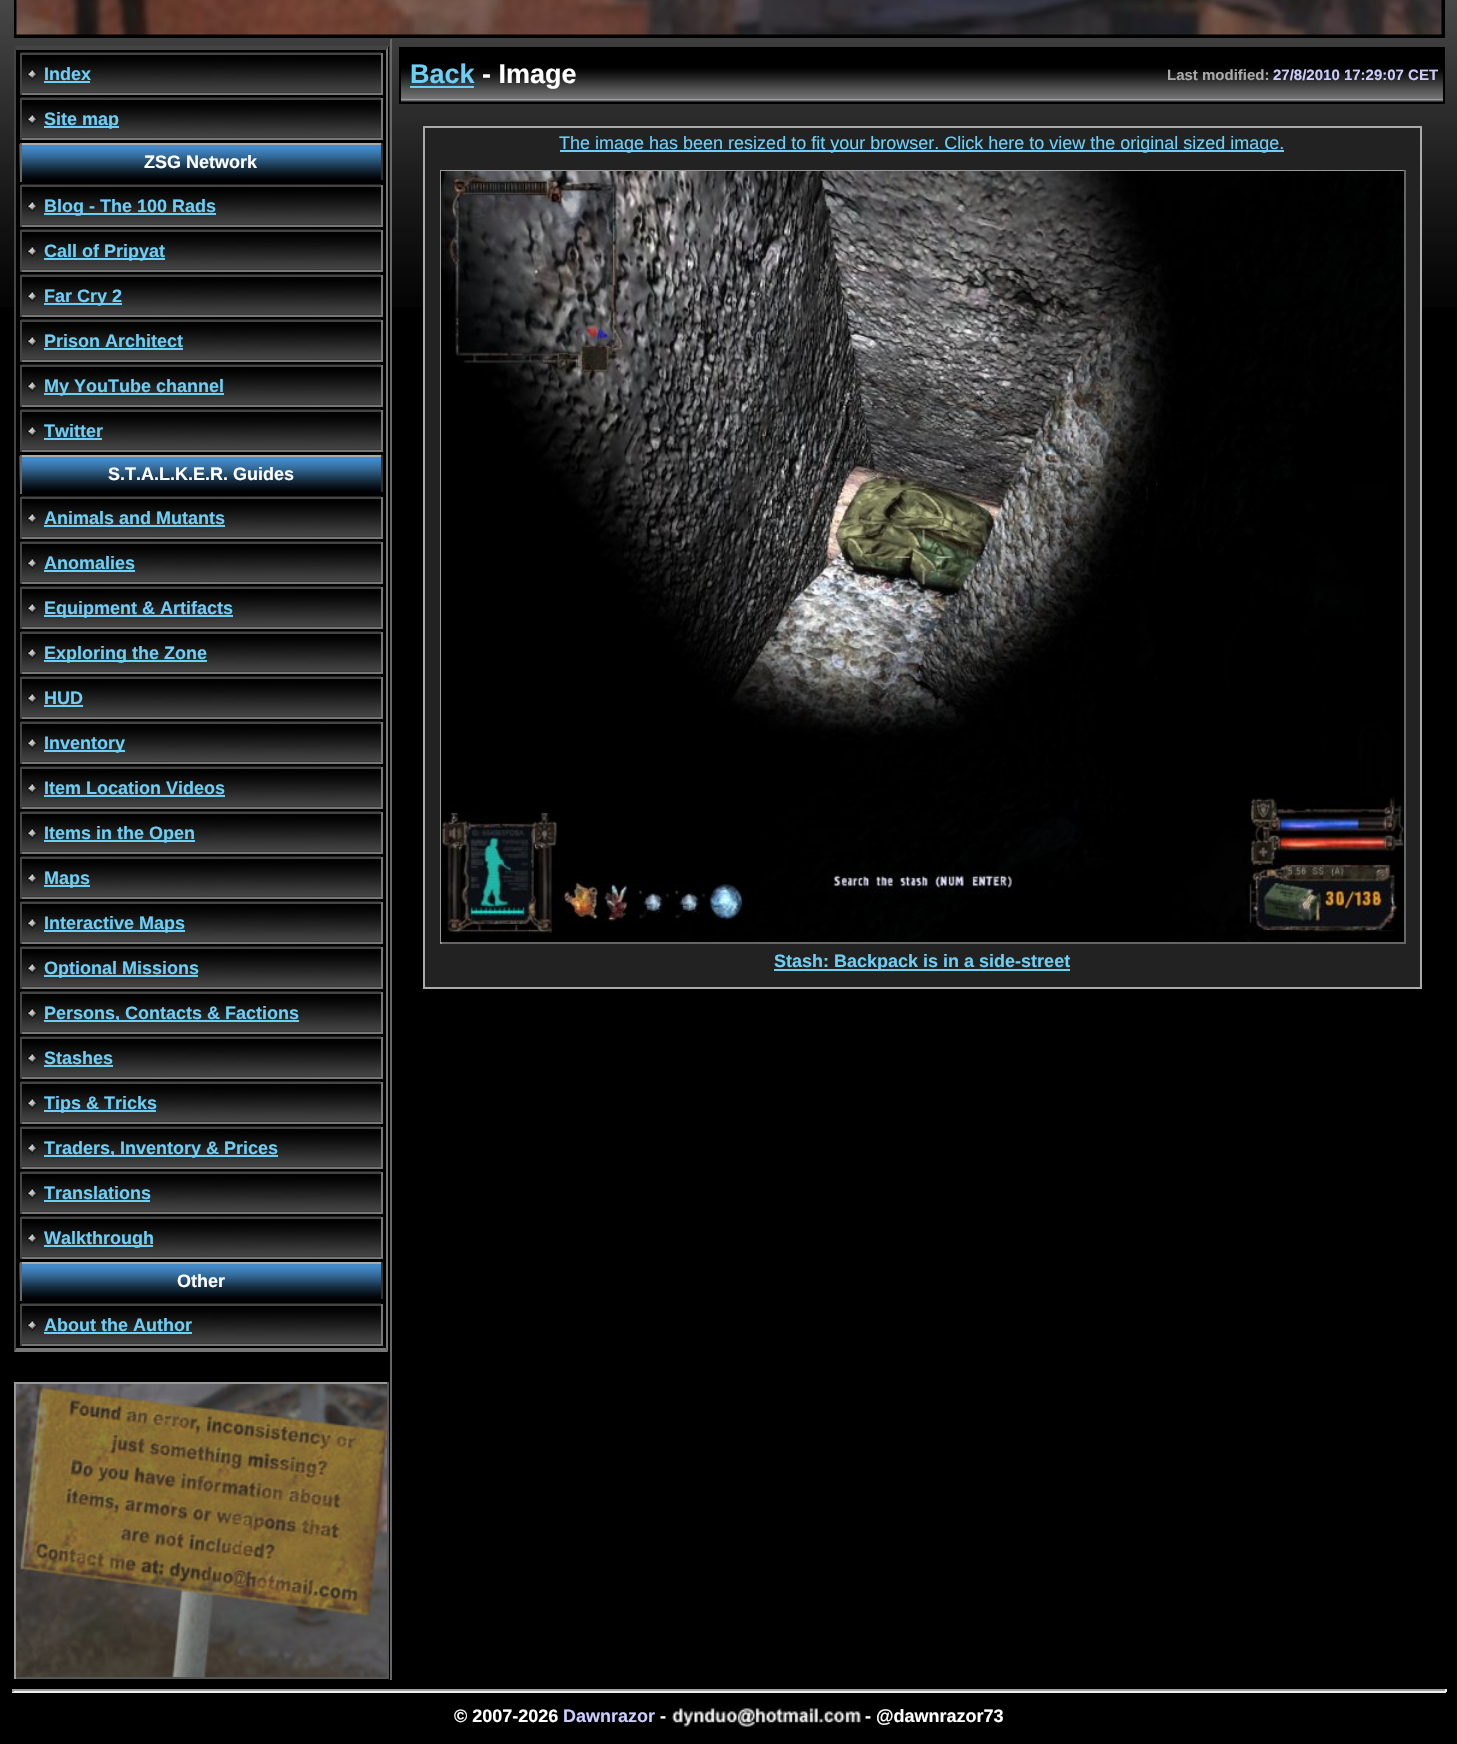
#include "include/core/SkBlurTypes.h"
#include "include/core/SkCanvas.h"
#include "include/core/SkData.h"
#include "include/core/SkFont.h"
#include "include/core/SkFontMgr.h"
#include "include/core/SkImage.h"
#include "include/core/SkMaskFilter.h"
#include "include/core/SkPaint.h"
#include "include/core/SkPathBuilder.h"
#include "include/core/SkTextBlob.h"
#include "include/effects/SkDashPathEffect.h"
#include "include/effects/SkGradientShader.h"
#include "include/utils/SkParsePath.h"

extern sk_sp<SkFontMgr> fontMgr;

static SkFont font(const char* family, int weight, float size, bool italic = false) {
    SkFontStyle style(weight, SkFontStyle::kNormal_Width,
        italic ? SkFontStyle::kItalic_Slant : SkFontStyle::kUpright_Slant);
    SkFont result(fontMgr->matchFamilyStyle(family, style), size);
    result.setSubpixel(true);
    return result;
}

static void drawLabel(SkCanvas* canvas, const char* s, float x, float y, const SkFont& font, SkColor color) {
    SkPaint ink(SkColor4f::FromColor(color));
    ink.setAntiAlias(true);
    canvas->drawString(s, x, y, font, ink);
}

static void fillRect(SkCanvas* canvas, float x, float y, float w, float h, SkColor color) {
    SkPaint ink(SkColor4f::FromColor(color));
    ink.setAntiAlias(true);
    canvas->drawRect(SkRect::MakeXYWH(x, y, w, h), ink);
}

static void drawPhoto(SkCanvas* canvas, const char* path, float x, float y, float w, float h) {
    auto image = SkImages::DeferredFromEncodedData(SkData::MakeFromFileName(path));
    canvas->drawImageRect(image, SkRect::MakeXYWH(x, y, w, h), SkSamplingOptions());
}

static SkPath parsePath(const char* data, bool evenOdd = false) {
    SkPath result = *SkParsePath::FromSVGString(data);
    if (evenOdd) result.setFillType(SkPathFillType::kEvenOdd);
    return result;
}

void draw(SkCanvas* canvas) {
    SkPaint paint;
    paint.setAntiAlias(true);
    canvas->clear(0xFF000000);
    drawPhoto(canvas, "assets/img1.png", 0, 0, 1457, 307);
    paint.setStroke(true);
    paint.setStrokeWidth(3);
    paint.setColor(0xFF000000);
    canvas->drawRect(SkRect::MakeXYWH(15.5f, -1.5f, 1428, 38), paint);
    fillRect(canvas, 17, 0, 1425, 35, 0xFF000000);
    drawPhoto(canvas, "assets/img2.png", 16, 0, 1426, 35);
    fillRect(canvas, 14, 47, 375, 260, 0xFF000000);
    paint.setStroke(false);
    paint.setColor(0xFF444444);
    canvas->drawPath(parsePath("M14 46H388L386 50H16Z"), paint);
    paint.setColor(0xFF777777);
    canvas->drawPath(parsePath("M388 46V1352L386 1348V50Z"), paint);
    canvas->drawPath(parsePath("M388 1352H14L16 1348H386Z"), paint);
    paint.setColor(0xFF444444);
    canvas->drawPath(parsePath("M14 1352V46L16 50V1348Z"), paint);
    drawPhoto(canvas, "assets/img3.png", 21, 52, 360, 41);
    fillRect(canvas, 20, 53, 363, 2, 0xFF444444);
    fillRect(canvas, 381, 53, 2, 42, 0xFF777777);
    fillRect(canvas, 20, 93, 363, 2, 0xFF777777);
    fillRect(canvas, 20, 53, 2, 42, 0xFF444444);
    drawPhoto(canvas, "assets/img4.png", 27, 69, 11, 11);
    SkFont font1 = font("Liberation Sans", 700, 18);
    drawLabel(canvas, "Index", 44, 80, font1, 0xFF6DCFF6);
    fillRect(canvas, 44, 81, 46, 2, 0xFF6DCFF6);
    drawPhoto(canvas, "assets/img5.png", 21, 97, 360, 41);
    fillRect(canvas, 20, 98, 363, 2, 0xFF444444);
    fillRect(canvas, 381, 98, 2, 42, 0xFF777777);
    fillRect(canvas, 20, 138, 363, 2, 0xFF777777);
    fillRect(canvas, 20, 98, 2, 42, 0xFF444444);
    drawPhoto(canvas, "assets/img6.png", 27, 114, 11, 11);
    fillRect(canvas, 44, 126, 75, 2, 0xFF6DCFF6);
    drawLabel(canvas, "Site map", 44, 125, font1, 0xFF6DCFF6);
    drawPhoto(canvas, "assets/img7.png", 19, 144, 362, 36);
    fillRect(canvas, 20, 143, 363, 2, 0xFFAAAAAA);
    fillRect(canvas, 381, 143, 2, 39, 0xFF333333);
    fillRect(canvas, 381, 180, 2, 2, 0xFF000000);
    fillRect(canvas, 20, 143, 2, 39, 0xFF666666);
    drawLabel(canvas, "ZSG Network", 144, 168, font1, 0xFFFFFFFF);
    drawPhoto(canvas, "assets/img8.png", 21, 184, 360, 41);
    fillRect(canvas, 20, 185, 363, 2, 0xFF444444);
    fillRect(canvas, 381, 185, 2, 42, 0xFF777777);
    fillRect(canvas, 20, 225, 363, 2, 0xFF777777);
    fillRect(canvas, 20, 185, 2, 42, 0xFF444444);
    drawPhoto(canvas, "assets/img6.png", 27, 201, 11, 11);
    fillRect(canvas, 44, 213, 172, 2, 0xFF6DCFF6);
    drawLabel(canvas, "Blog - The 100 Rads", 44, 212, font1, 0xFF6DCFF6);
    drawPhoto(canvas, "assets/img9.png", 21, 229, 360, 41);
    fillRect(canvas, 20, 230, 363, 2, 0xFF444444);
    fillRect(canvas, 381, 230, 2, 42, 0xFF777777);
    fillRect(canvas, 20, 270, 363, 2, 0xFF777777);
    fillRect(canvas, 20, 230, 2, 42, 0xFF444444);
    drawPhoto(canvas, "assets/img10.png", 27, 246, 11, 11);
    fillRect(canvas, 44, 258, 121, 2, 0xFF6DCFF6);
    drawLabel(canvas, "Call of Pripyat", 44, 257, font1, 0xFF6DCFF6);
    drawPhoto(canvas, "assets/img11.png", 21, 274, 360, 41);
    fillRect(canvas, 20, 275, 363, 2, 0xFF444444);
    fillRect(canvas, 381, 275, 2, 42, 0xFF777777);
    fillRect(canvas, 20, 315, 363, 2, 0xFF777777);
    fillRect(canvas, 20, 275, 2, 42, 0xFF444444);
    drawPhoto(canvas, "assets/img10.png", 27, 291, 11, 11);
    fillRect(canvas, 44, 303, 78, 2, 0xFF6DCFF6);
    drawLabel(canvas, "Far Cry 2", 44, 302, font1, 0xFF6DCFF6);
    drawPhoto(canvas, "assets/img12.png", 21, 319, 360, 41);
    fillRect(canvas, 20, 320, 363, 2, 0xFF444444);
    fillRect(canvas, 381, 320, 2, 42, 0xFF777777);
    fillRect(canvas, 20, 360, 363, 2, 0xFF777777);
    fillRect(canvas, 20, 320, 2, 42, 0xFF444444);
    drawPhoto(canvas, "assets/img6.png", 27, 336, 11, 11);
    drawLabel(canvas, "Prison Architect", 44, 347, font1, 0xFF6DCFF6);
    fillRect(canvas, 44, 348, 139, 2, 0xFF6DCFF6);
    drawPhoto(canvas, "assets/img13.png", 21, 364, 360, 41);
    fillRect(canvas, 20, 365, 363, 2, 0xFF444444);
    fillRect(canvas, 381, 365, 2, 42, 0xFF777777);
    fillRect(canvas, 20, 405, 363, 2, 0xFF777777);
    fillRect(canvas, 20, 365, 2, 42, 0xFF444444);
    drawPhoto(canvas, "assets/img6.png", 27, 381, 11, 11);
    fillRect(canvas, 44, 393, 180, 2, 0xFF6DCFF6);
    drawLabel(canvas, "My YouTube channel", 44, 392, font1, 0xFF6DCFF6);
    drawPhoto(canvas, "assets/img5.png", 21, 409, 360, 41);
    fillRect(canvas, 20, 410, 363, 2, 0xFF444444);
    fillRect(canvas, 381, 410, 2, 42, 0xFF777777);
    fillRect(canvas, 20, 450, 363, 2, 0xFF777777);
    fillRect(canvas, 20, 410, 2, 42, 0xFF444444);
    drawPhoto(canvas, "assets/img6.png", 27, 426, 11, 11);
    drawLabel(canvas, "Twitter", 44, 437, font1, 0xFF6DCFF6);
    fillRect(canvas, 44, 438, 58, 2, 0xFF6DCFF6);
    drawPhoto(canvas, "assets/img7.png", 19, 456, 362, 36);
    fillRect(canvas, 20, 455, 363, 2, 0xFFAAAAAA);
    fillRect(canvas, 381, 455, 2, 39, 0xFF333333);
    fillRect(canvas, 381, 492, 2, 2, 0xFF000000);
    fillRect(canvas, 20, 455, 2, 39, 0xFF666666);
    drawLabel(canvas, "S.T.A.L.K.E.R. Guides", 108, 480, font1, 0xFFFFFFFF);
    drawPhoto(canvas, "assets/img13.png", 21, 496, 360, 41);
    fillRect(canvas, 20, 497, 363, 2, 0xFF444444);
    fillRect(canvas, 381, 497, 2, 42, 0xFF777777);
    fillRect(canvas, 20, 537, 363, 2, 0xFF777777);
    fillRect(canvas, 20, 497, 2, 42, 0xFF444444);
    drawPhoto(canvas, "assets/img6.png", 27, 513, 11, 11);
    drawLabel(canvas, "Animals and Mutants", 44, 524, font1, 0xFF6DCFF6);
    fillRect(canvas, 44, 525, 181, 2, 0xFF6DCFF6);
    drawPhoto(canvas, "assets/img14.png", 21, 541, 360, 41);
    fillRect(canvas, 20, 542, 363, 2, 0xFF444444);
    fillRect(canvas, 381, 542, 2, 42, 0xFF777777);
    fillRect(canvas, 20, 582, 363, 2, 0xFF777777);
    fillRect(canvas, 20, 542, 2, 42, 0xFF444444);
    drawPhoto(canvas, "assets/img4.png", 27, 558, 11, 11);
    drawLabel(canvas, "Anomalies", 44, 569, font1, 0xFF6DCFF6);
    fillRect(canvas, 44, 570, 91, 2, 0xFF6DCFF6);
    drawPhoto(canvas, "assets/img15.png", 21, 586, 360, 41);
    fillRect(canvas, 20, 587, 363, 2, 0xFF444444);
    fillRect(canvas, 381, 587, 2, 42, 0xFF777777);
    fillRect(canvas, 20, 627, 363, 2, 0xFF777777);
    fillRect(canvas, 20, 587, 2, 42, 0xFF444444);
    drawPhoto(canvas, "assets/img16.png", 27, 603, 11, 11);
    fillRect(canvas, 44, 615, 189, 2, 0xFF6DCFF6);
    drawLabel(canvas, "Equipment & Artifacts", 44, 614, font1, 0xFF6DCFF6);
    drawPhoto(canvas, "assets/img5.png", 21, 631, 360, 41);
    fillRect(canvas, 20, 632, 363, 2, 0xFF444444);
    fillRect(canvas, 381, 632, 2, 42, 0xFF777777);
    fillRect(canvas, 20, 672, 363, 2, 0xFF777777);
    fillRect(canvas, 20, 632, 2, 42, 0xFF444444);
    drawPhoto(canvas, "assets/img6.png", 27, 648, 11, 11);
    fillRect(canvas, 44, 660, 163, 2, 0xFF6DCFF6);
    drawLabel(canvas, "Exploring the Zone", 44, 659, font1, 0xFF6DCFF6);
    drawPhoto(canvas, "assets/img14.png", 21, 676, 360, 41);
    fillRect(canvas, 20, 677, 363, 2, 0xFF444444);
    fillRect(canvas, 381, 677, 2, 42, 0xFF777777);
    fillRect(canvas, 20, 717, 363, 2, 0xFF777777);
    fillRect(canvas, 20, 677, 2, 42, 0xFF444444);
    drawPhoto(canvas, "assets/img4.png", 27, 693, 11, 11);
    drawLabel(canvas, "HUD", 44, 704, font1, 0xFF6DCFF6);
    fillRect(canvas, 44, 705, 39, 2, 0xFF6DCFF6);
    drawPhoto(canvas, "assets/img17.png", 21, 721, 360, 41);
    fillRect(canvas, 20, 722, 363, 2, 0xFF444444);
    fillRect(canvas, 381, 722, 2, 42, 0xFF777777);
    fillRect(canvas, 20, 762, 363, 2, 0xFF777777);
    fillRect(canvas, 20, 722, 2, 42, 0xFF444444);
    drawPhoto(canvas, "assets/img4.png", 27, 738, 11, 11);
    fillRect(canvas, 44, 750, 81, 2, 0xFF6DCFF6);
    drawLabel(canvas, "Inventory", 44, 749, font1, 0xFF6DCFF6);
    drawPhoto(canvas, "assets/img17.png", 21, 766, 360, 41);
    fillRect(canvas, 20, 767, 363, 2, 0xFF444444);
    fillRect(canvas, 381, 767, 2, 42, 0xFF777777);
    fillRect(canvas, 20, 807, 363, 2, 0xFF777777);
    fillRect(canvas, 20, 767, 2, 42, 0xFF444444);
    drawPhoto(canvas, "assets/img4.png", 27, 783, 11, 11);
    drawLabel(canvas, "Item Location Videos", 44, 794, font1, 0xFF6DCFF6);
    fillRect(canvas, 44, 795, 181, 2, 0xFF6DCFF6);
    drawPhoto(canvas, "assets/img17.png", 21, 811, 360, 41);
    fillRect(canvas, 20, 812, 363, 2, 0xFF444444);
    fillRect(canvas, 381, 812, 2, 42, 0xFF777777);
    fillRect(canvas, 20, 852, 363, 2, 0xFF777777);
    fillRect(canvas, 20, 812, 2, 42, 0xFF444444);
    drawPhoto(canvas, "assets/img4.png", 27, 828, 11, 11);
    fillRect(canvas, 44, 840, 151, 2, 0xFF6DCFF6);
    drawLabel(canvas, "Items in the Open", 44, 839, font1, 0xFF6DCFF6);
    drawPhoto(canvas, "assets/img5.png", 21, 856, 360, 41);
    fillRect(canvas, 20, 857, 363, 2, 0xFF444444);
    fillRect(canvas, 381, 857, 2, 42, 0xFF777777);
    fillRect(canvas, 20, 897, 363, 2, 0xFF777777);
    fillRect(canvas, 20, 857, 2, 42, 0xFF444444);
    drawPhoto(canvas, "assets/img6.png", 27, 873, 11, 11);
    fillRect(canvas, 44, 885, 46, 2, 0xFF6DCFF6);
    drawLabel(canvas, "Maps", 44, 884, font1, 0xFF6DCFF6);
    drawPhoto(canvas, "assets/img15.png", 21, 901, 360, 41);
    fillRect(canvas, 20, 902, 363, 2, 0xFF444444);
    fillRect(canvas, 381, 902, 2, 42, 0xFF777777);
    fillRect(canvas, 20, 942, 363, 2, 0xFF777777);
    fillRect(canvas, 20, 902, 2, 42, 0xFF444444);
    drawPhoto(canvas, "assets/img16.png", 27, 918, 11, 11);
    fillRect(canvas, 44, 930, 141, 2, 0xFF6DCFF6);
    drawLabel(canvas, "Interactive Maps", 44, 929, font1, 0xFF6DCFF6);
    drawPhoto(canvas, "assets/img8.png", 21, 946, 360, 41);
    fillRect(canvas, 20, 947, 363, 2, 0xFF444444);
    fillRect(canvas, 381, 947, 2, 42, 0xFF777777);
    fillRect(canvas, 20, 987, 363, 2, 0xFF777777);
    fillRect(canvas, 20, 947, 2, 42, 0xFF444444);
    drawPhoto(canvas, "assets/img6.png", 27, 963, 11, 11);
    fillRect(canvas, 44, 975, 154, 2, 0xFF6DCFF6);
    drawLabel(canvas, "Optional Missions", 44, 974, font1, 0xFF6DCFF6);
    drawPhoto(canvas, "assets/img9.png", 21, 991, 360, 41);
    fillRect(canvas, 20, 992, 363, 2, 0xFF444444);
    fillRect(canvas, 381, 992, 2, 42, 0xFF777777);
    fillRect(canvas, 20, 1032, 363, 2, 0xFF777777);
    fillRect(canvas, 20, 992, 2, 42, 0xFF444444);
    drawPhoto(canvas, "assets/img10.png", 27, 1008, 11, 11);
    fillRect(canvas, 44, 1020, 255, 2, 0xFF6DCFF6);
    drawLabel(canvas, "Persons, Contacts & Factions", 44, 1019, font1, 0xFF6DCFF6);
    drawPhoto(canvas, "assets/img11.png", 21, 1036, 360, 41);
    fillRect(canvas, 20, 1037, 363, 2, 0xFF444444);
    fillRect(canvas, 381, 1037, 2, 42, 0xFF777777);
    fillRect(canvas, 20, 1077, 363, 2, 0xFF777777);
    fillRect(canvas, 20, 1037, 2, 42, 0xFF444444);
    drawPhoto(canvas, "assets/img10.png", 27, 1053, 11, 11);
    drawLabel(canvas, "Stashes", 44, 1064, font1, 0xFF6DCFF6);
    fillRect(canvas, 44, 1065, 69, 2, 0xFF6DCFF6);
    drawPhoto(canvas, "assets/img12.png", 21, 1081, 360, 41);
    fillRect(canvas, 20, 1082, 363, 2, 0xFF444444);
    fillRect(canvas, 381, 1082, 2, 42, 0xFF777777);
    fillRect(canvas, 20, 1122, 363, 2, 0xFF777777);
    fillRect(canvas, 20, 1082, 2, 42, 0xFF444444);
    drawPhoto(canvas, "assets/img6.png", 27, 1098, 11, 11);
    fillRect(canvas, 44, 1110, 112, 2, 0xFF6DCFF6);
    drawLabel(canvas, "Tips & Tricks", 44, 1109, font1, 0xFF6DCFF6);
    drawPhoto(canvas, "assets/img13.png", 21, 1126, 360, 41);
    fillRect(canvas, 20, 1127, 363, 2, 0xFF444444);
    fillRect(canvas, 381, 1127, 2, 42, 0xFF777777);
    fillRect(canvas, 20, 1167, 363, 2, 0xFF777777);
    fillRect(canvas, 20, 1127, 2, 42, 0xFF444444);
    drawPhoto(canvas, "assets/img6.png", 27, 1143, 11, 11);
    fillRect(canvas, 44, 1155, 234, 2, 0xFF6DCFF6);
    drawLabel(canvas, "Traders, Inventory & Prices", 44, 1154, font1, 0xFF6DCFF6);
    drawPhoto(canvas, "assets/img5.png", 21, 1171, 360, 41);
    fillRect(canvas, 20, 1172, 363, 2, 0xFF444444);
    fillRect(canvas, 381, 1172, 2, 42, 0xFF777777);
    fillRect(canvas, 20, 1212, 363, 2, 0xFF777777);
    fillRect(canvas, 20, 1172, 2, 42, 0xFF444444);
    drawPhoto(canvas, "assets/img6.png", 27, 1188, 11, 11);
    drawLabel(canvas, "Translations", 44, 1199, font1, 0xFF6DCFF6);
    fillRect(canvas, 44, 1200, 106, 2, 0xFF6DCFF6);
    drawPhoto(canvas, "assets/img15.png", 21, 1216, 360, 41);
    fillRect(canvas, 20, 1217, 363, 2, 0xFF444444);
    fillRect(canvas, 381, 1217, 2, 42, 0xFF777777);
    fillRect(canvas, 20, 1257, 363, 2, 0xFF777777);
    fillRect(canvas, 20, 1217, 2, 42, 0xFF444444);
    drawPhoto(canvas, "assets/img16.png", 27, 1233, 11, 11);
    fillRect(canvas, 44, 1245, 109, 2, 0xFF6DCFF6);
    drawLabel(canvas, "Walkthrough", 44, 1244, font1, 0xFF6DCFF6);
    drawPhoto(canvas, "assets/img7.png", 19, 1263, 362, 36);
    fillRect(canvas, 20, 1262, 363, 2, 0xFFAAAAAA);
    fillRect(canvas, 381, 1262, 2, 39, 0xFF333333);
    fillRect(canvas, 381, 1299, 2, 2, 0xFF000000);
    fillRect(canvas, 20, 1262, 2, 39, 0xFF666666);
    drawLabel(canvas, "Other", 177, 1287, font1, 0xFFFFFFFF);
    drawPhoto(canvas, "assets/img14.png", 21, 1303, 360, 41);
    fillRect(canvas, 20, 1304, 363, 2, 0xFF444444);
    fillRect(canvas, 381, 1304, 2, 42, 0xFF777777);
    fillRect(canvas, 20, 1344, 363, 2, 0xFF777777);
    fillRect(canvas, 20, 1304, 2, 42, 0xFF444444);
    drawPhoto(canvas, "assets/img4.png", 27, 1320, 11, 11);
    drawLabel(canvas, "About the Author", 44, 1331, font1, 0xFF6DCFF6);
    fillRect(canvas, 44, 1332, 148, 2, 0xFF6DCFF6);
    drawPhoto(canvas, "assets/img18.png", 16, 1384, 371, 293);
    fillRect(canvas, 14, 1382, 375, 2, 0xFF999999);
    fillRect(canvas, 387, 1382, 2, 297, 0xFF555555);
    fillRect(canvas, 14, 1677, 375, 2, 0xFF555555);
    fillRect(canvas, 14, 1382, 2, 297, 0xFF999999);
    fillRect(canvas, 390, 39, 2, 1641, 0xFF666666);
    drawPhoto(canvas, "assets/img19.png", 401, 49, 1042, 52);
    paint.setStroke(true);
    paint.setStrokeWidth(2);
    paint.setColor(0xFF000000);
    canvas->drawRect(SkRect::MakeXYWH(400, 48, 1044, 55), paint);
    SkFont font2 = font("Liberation Sans", 700, 27);
    drawLabel(canvas, "Back", 410, 83, font2, 0xFF6DCFF6);
    fillRect(canvas, 410, 86, 64, 2, 0xFF6DCFF6);
    drawLabel(canvas, "- Image", 482, 83, font2, 0xFFFFFFFF);
    SkFont font3 = font("Liberation Sans", 700, 15);
    drawLabel(canvas, "Last modified:", 1167, 80, font3, 0xFFAAAAAA);
    drawLabel(canvas, "27/8/2010 17:29:07 CET", 1273, 80, font3, 0xFFCCCCFF);
    paint.setStroke(false);
    paint.setColor(0xFF222222);
    canvas->drawRect(SkRect::MakeXYWH(424, 127, 997, 861), paint);
    paint.setStroke(true);
    paint.setColor(0xFFAAAAAA);
    canvas->drawRect(SkRect::MakeXYWH(424, 127, 997, 861), paint);
    fillRect(canvas, 560, 150, 724, 2, 0xFF6DCFF6);
    SkFont font4 = font("Liberation Sans", 400, 18);
    drawLabel(canvas, "The image has been resized to fit your browser. Click here to view the original sized image.", 559, 149, font4, 0xFF6DCFF6);
    fillRect(canvas, 440, 170, 966, 1, 0xFF999999);
    fillRect(canvas, 1404, 170, 2, 774, 0xFF666666);
    fillRect(canvas, 440, 942, 966, 2, 0xFF666666);
    fillRect(canvas, 440, 170, 2, 774, 0xFF999999);
    drawPhoto(canvas, "assets/img20.png", 441, 171, 963, 771);
    fillRect(canvas, 774, 969, 296, 2, 0xFF6DCFF6);
    drawLabel(canvas, "Stash: Backpack is in a side-street", 774, 967, font1, 0xFF6DCFF6);
    fillRect(canvas, 12, 1689, 1434, 2, 0xFF9F9F9F);
    fillRect(canvas, 1445, 1689, 2, 3, 0xFFEEEEEE);
    fillRect(canvas, 12, 1691, 1434, 2, 0xFFEEEEEE);
    fillRect(canvas, 12, 1689, 2, 3, 0xFF9F9F9F);
    drawLabel(canvas, "© 2007-2026", 454, 1722, font1, 0xFFFFFFFF);
    drawLabel(canvas, "Dawnrazor", 563, 1722, font1, 0xFFCCCCFF);
    drawLabel(canvas, "-", 660, 1722, font1, 0xFFFFFFFF);
    drawPhoto(canvas, "assets/img21.png", 672, 1707, 189, 21);
    drawLabel(canvas, "- @dawnrazor73", 865, 1722, font1, 0xFFFFFFFF);
}
